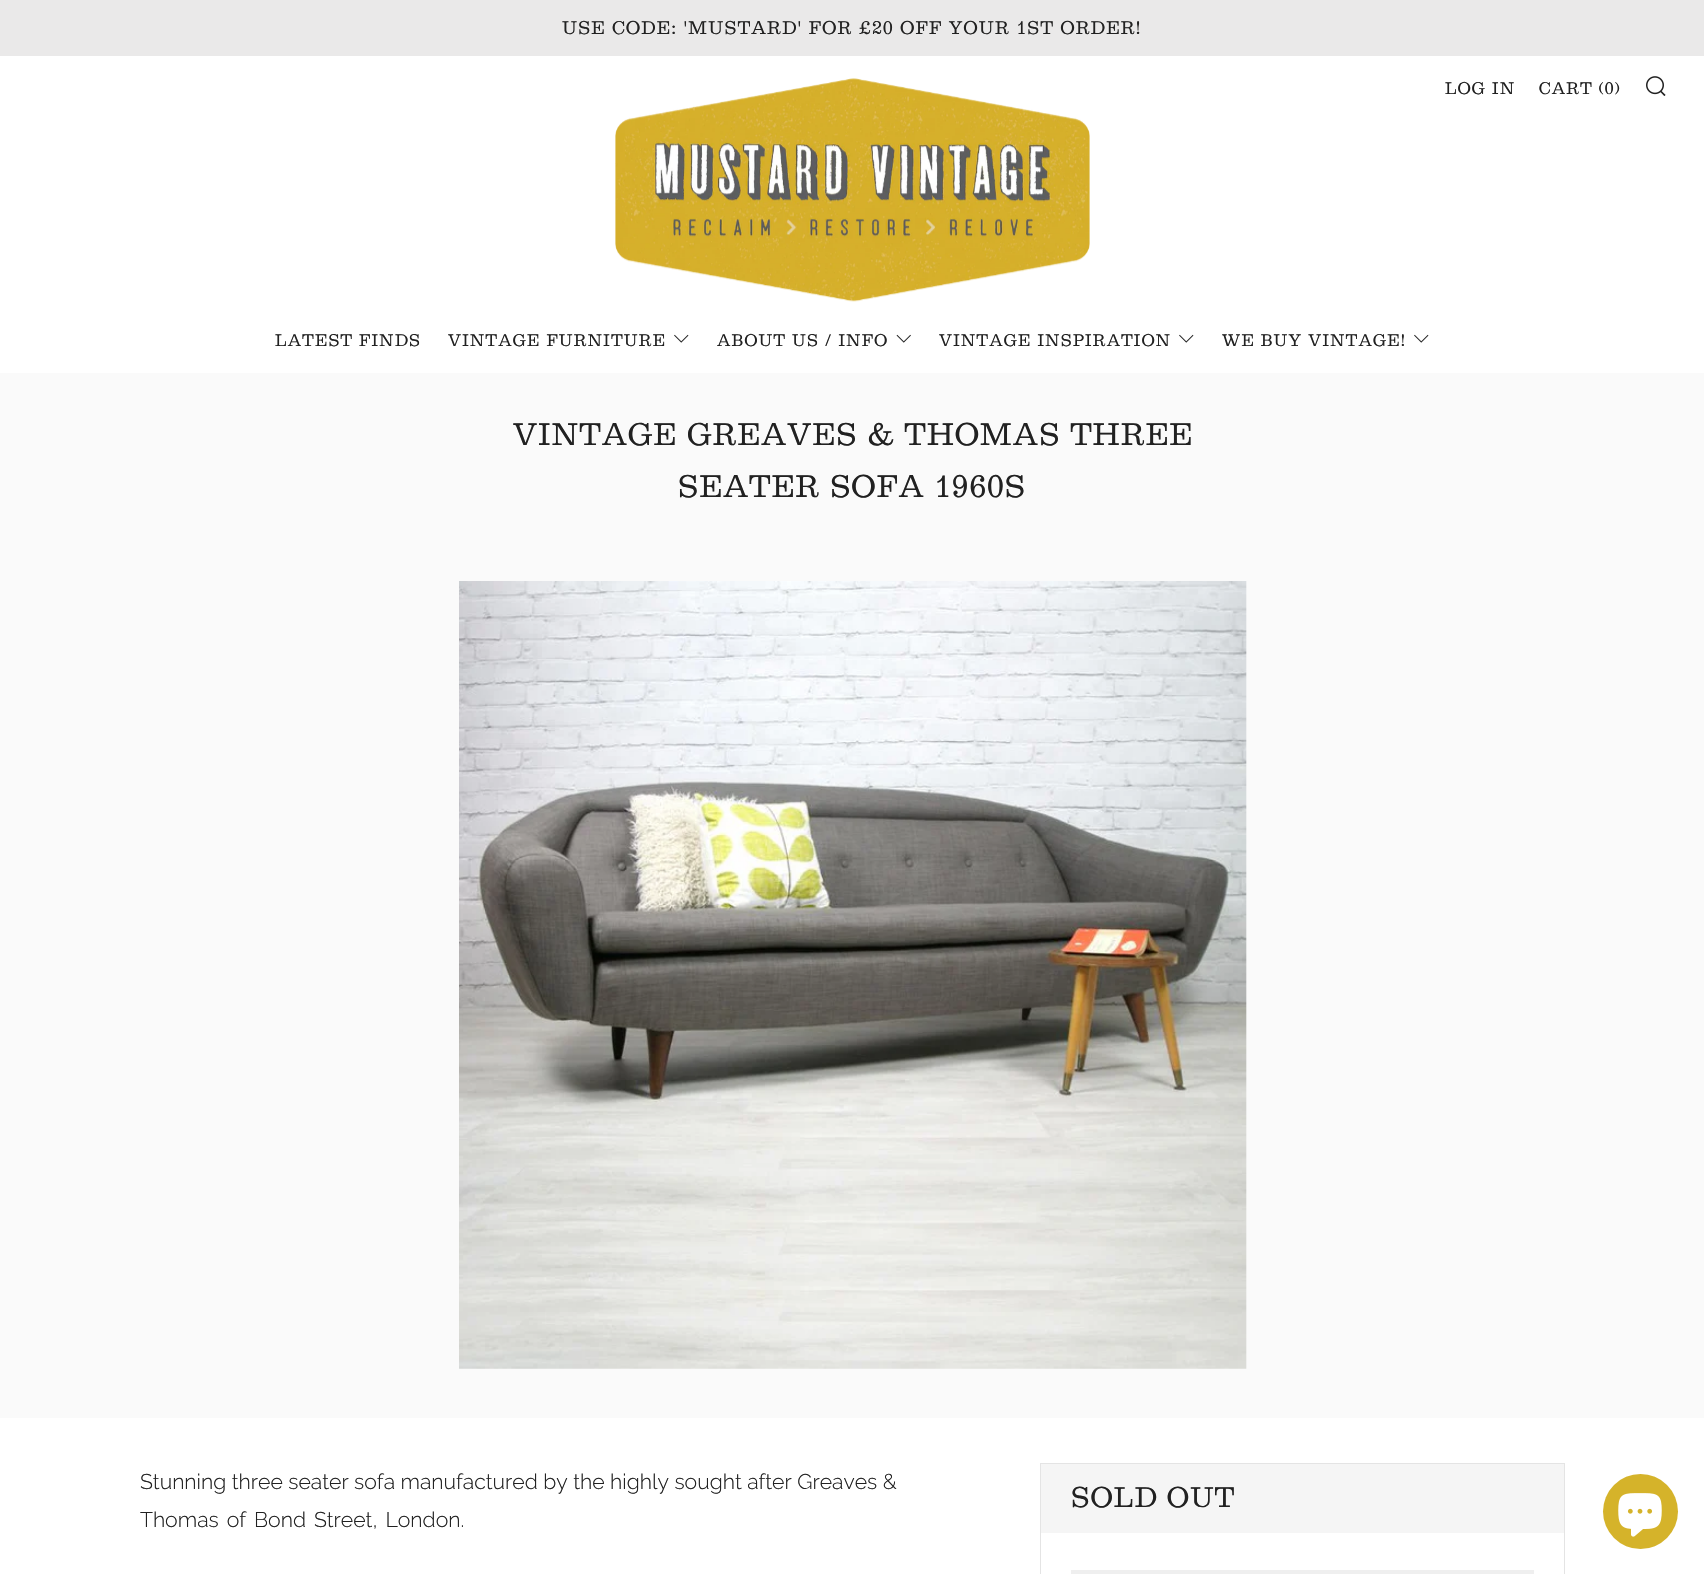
#include "include/core/SkBlurTypes.h"
#include "include/core/SkCanvas.h"
#include "include/core/SkData.h"
#include "include/core/SkFont.h"
#include "include/core/SkFontMgr.h"
#include "include/core/SkImage.h"
#include "include/core/SkMaskFilter.h"
#include "include/core/SkPaint.h"
#include "include/core/SkPathBuilder.h"
#include "include/core/SkTextBlob.h"
#include "include/effects/SkDashPathEffect.h"
#include "include/effects/SkGradientShader.h"
#include "include/utils/SkParsePath.h"

extern sk_sp<SkFontMgr> fontMgr;

static SkFont font(const char* family, int weight, float size, bool italic = false) {
    SkFontStyle style(weight, SkFontStyle::kNormal_Width,
        italic ? SkFontStyle::kItalic_Slant : SkFontStyle::kUpright_Slant);
    SkFont result(fontMgr->matchFamilyStyle(family, style), size);
    result.setSubpixel(true);
    return result;
}

static void drawLabel(SkCanvas* canvas, const char* s, float x, float y, const SkFont& font, SkColor color) {
    SkPaint ink(SkColor4f::FromColor(color));
    ink.setAntiAlias(true);
    canvas->drawString(s, x, y, font, ink);
}

static void drawTracked(SkCanvas* canvas, const char* s, float x, float y, const SkFont& font, const SkPaint& ink, float letter, float word) {
    std::vector<SkGlyphID> glyphs(font.countText(s, strlen(s), SkTextEncoding::kUTF8));
    std::vector<float> xs(glyphs.size());
    font.textToGlyphs(s, strlen(s), SkTextEncoding::kUTF8, glyphs);
    font.getXPos(glyphs, xs, x);
    float extra = 0;
    for (size_t i = 0; i < glyphs.size(); i++) {
        xs[i] += extra;
        extra += letter + word * (glyphs[i] == font.unicharToGlyph(' '));
    }
    canvas->drawTextBlob(SkTextBlob::MakeFromPosHGlyphs(glyphs, xs, y, font), 0, 0, ink);
}

static void fillRect(SkCanvas* canvas, float x, float y, float w, float h, SkColor color) {
    SkPaint ink(SkColor4f::FromColor(color));
    ink.setAntiAlias(true);
    canvas->drawRect(SkRect::MakeXYWH(x, y, w, h), ink);
}

static void drawPhoto(SkCanvas* canvas, const char* path, float x, float y, float w, float h) {
    auto image = SkImages::DeferredFromEncodedData(SkData::MakeFromFileName(path));
    canvas->drawImageRect(image, SkRect::MakeXYWH(x, y, w, h), SkSamplingOptions());
}

void draw(SkCanvas* canvas) {
    SkPaint paint;
    paint.setAntiAlias(true);
    canvas->clear(0xFFFFFFFF);
    fillRect(canvas, 0, 0, 1704, 56, 0xFFEAE9E9);
    SkFont font1 = font("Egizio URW", 400, 19.1f);
    paint.setColor(0xFF212121);
    drawTracked(canvas, "USE CODE: 'MUSTARD' FOR £20 OFF YOUR 1ST ORDER!", 562, 34, font1, paint, 1.25f, 0);
    drawPhoto(canvas, "assets/img1.png", 615, 78, 475, 224);
    SkFont font2 = font("Egizio URW", 400, 17.5f);
    drawTracked(canvas, "LOG IN", 1445, 94, font2, paint, 1.25f, 0);
    drawTracked(canvas, "CART (0)", 1539, 94, font2, paint, 1.25f, 0);
    drawPhoto(canvas, "assets/img2.png", 1646, 76, 20, 20);
    drawTracked(canvas, "LATEST FINDS", 275, 346, font2, paint, 1.25f, 0);
    drawTracked(canvas, "VINTAGE FURNITURE", 448, 346, font2, paint, 1.25f, 0);
    drawPhoto(canvas, "assets/img3.png", 674, 334, 15, 9);
    drawTracked(canvas, "ABOUT US / INFO", 717, 346, font2, paint, 1.25f, 0);
    drawPhoto(canvas, "assets/img4.png", 896, 334, 15, 9);
    drawTracked(canvas, "VINTAGE INSPIRATION", 939, 346, font2, paint, 1.25f, 0);
    drawPhoto(canvas, "assets/img3.png", 1179, 334, 15, 9);
    drawTracked(canvas, "WE BUY VINTAGE!", 1222, 346, font2, paint, 1.25f, 0);
    drawPhoto(canvas, "assets/img3.png", 1414, 334, 15, 9);
    fillRect(canvas, 0, 373, 1704, 1045, 0xFFFAFAFA);
    SkFont font3 = font("Egizio URW", 400, 32.5f);
    drawTracked(canvas, "VINTAGE GREAVES & THOMAS THREE", 513, 445, font3, paint, 1.25f, 0);
    drawTracked(canvas, "SEATER SOFA 1960S", 678, 497, font3, paint, 1.25f, 0);
    drawPhoto(canvas, "assets/img5.png", 459, 581, 788, 788);
    SkFont font4 = font("Raleway", 300, 21.25f);
    drawLabel(canvas, "Stunning three seater sofa manufactured by the highly sought after Greaves &", 140, 1489, font4, 0xFF212121);
    drawTracked(canvas, "Thomas of Bond Street, London.", 140, 1527, font4, paint, 0, 2.5f);
    paint.setStroke(true);
    paint.setStrokeWidth(1);
    paint.setColor(0xFFE4E4E4);
    canvas->drawRect(SkRect::MakeXYWH(1040.5f, 1463.5f, 524, 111), paint);
    fillRect(canvas, 1041, 1464, 523, 69, 0xFFF5F5F5);
    SkFont font5 = font("Egizio URW", 400, 29.75f);
    paint.setStroke(false);
    paint.setColor(0xFF212121);
    drawTracked(canvas, "SOLD OUT", 1071, 1507, font5, paint, 1.25f, 0);
    fillRect(canvas, 1071, 1570, 463, 4, 0xFFEFEFEF);
    paint.setColor(0xFFD5B32A);
    canvas->drawCircle(1640.5f, 1511.5f, 37.5f, paint);
    drawPhoto(canvas, "assets/img6.png", 1618, 1493, 44, 44);
}
